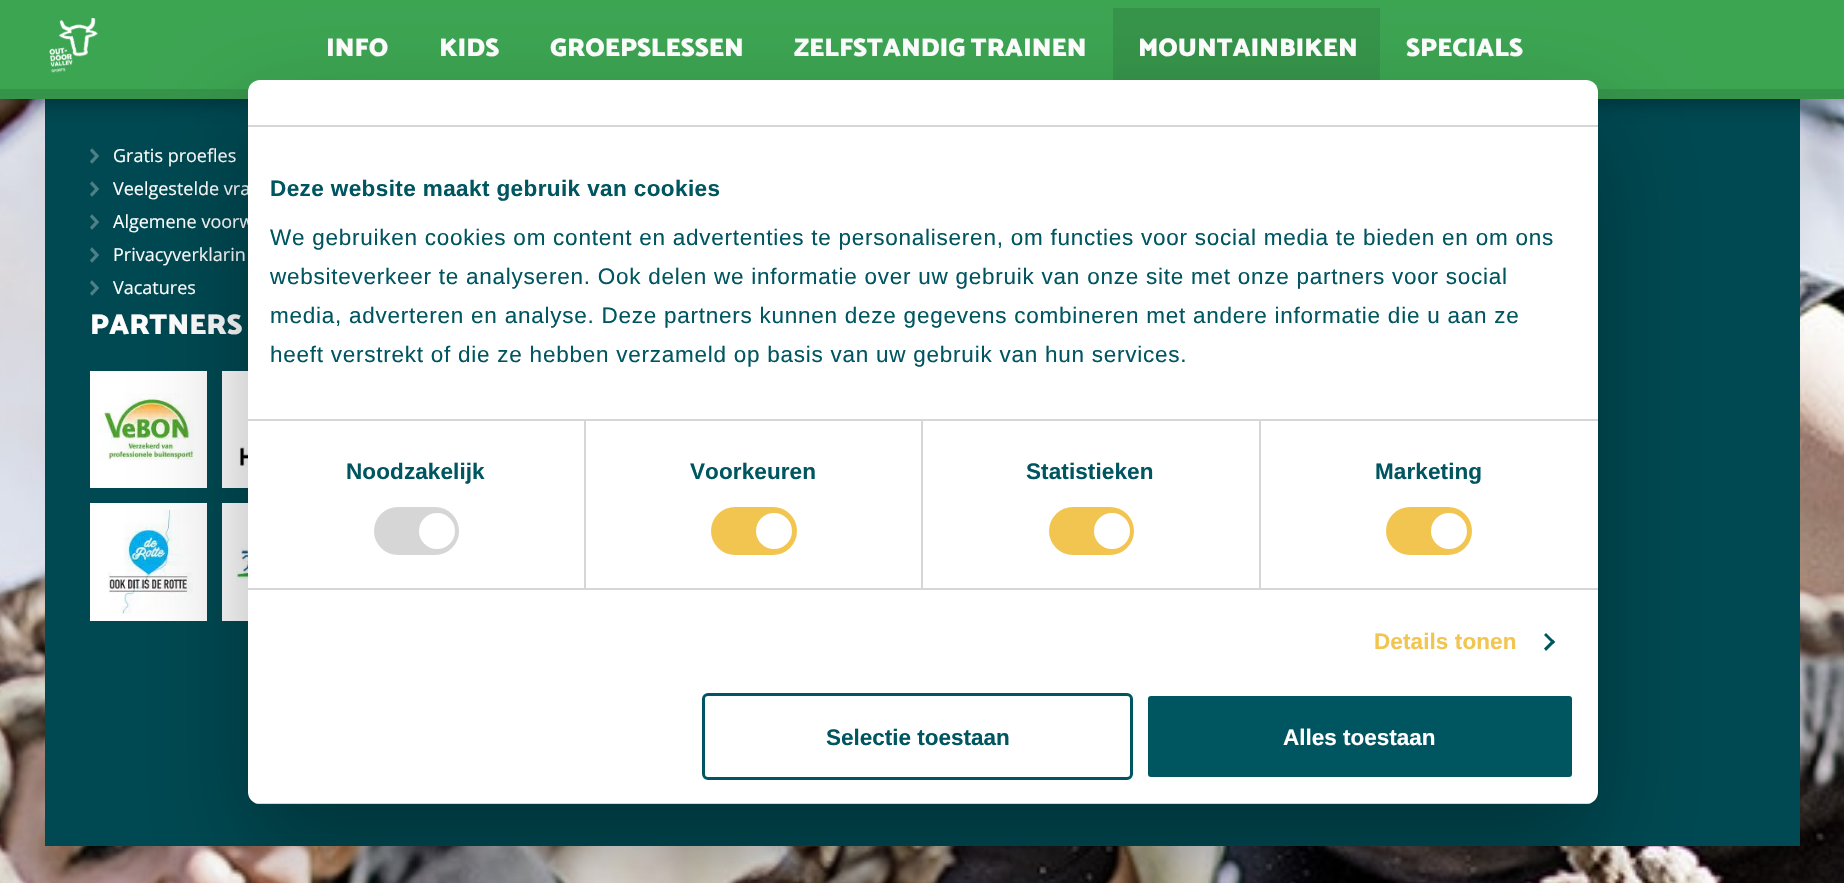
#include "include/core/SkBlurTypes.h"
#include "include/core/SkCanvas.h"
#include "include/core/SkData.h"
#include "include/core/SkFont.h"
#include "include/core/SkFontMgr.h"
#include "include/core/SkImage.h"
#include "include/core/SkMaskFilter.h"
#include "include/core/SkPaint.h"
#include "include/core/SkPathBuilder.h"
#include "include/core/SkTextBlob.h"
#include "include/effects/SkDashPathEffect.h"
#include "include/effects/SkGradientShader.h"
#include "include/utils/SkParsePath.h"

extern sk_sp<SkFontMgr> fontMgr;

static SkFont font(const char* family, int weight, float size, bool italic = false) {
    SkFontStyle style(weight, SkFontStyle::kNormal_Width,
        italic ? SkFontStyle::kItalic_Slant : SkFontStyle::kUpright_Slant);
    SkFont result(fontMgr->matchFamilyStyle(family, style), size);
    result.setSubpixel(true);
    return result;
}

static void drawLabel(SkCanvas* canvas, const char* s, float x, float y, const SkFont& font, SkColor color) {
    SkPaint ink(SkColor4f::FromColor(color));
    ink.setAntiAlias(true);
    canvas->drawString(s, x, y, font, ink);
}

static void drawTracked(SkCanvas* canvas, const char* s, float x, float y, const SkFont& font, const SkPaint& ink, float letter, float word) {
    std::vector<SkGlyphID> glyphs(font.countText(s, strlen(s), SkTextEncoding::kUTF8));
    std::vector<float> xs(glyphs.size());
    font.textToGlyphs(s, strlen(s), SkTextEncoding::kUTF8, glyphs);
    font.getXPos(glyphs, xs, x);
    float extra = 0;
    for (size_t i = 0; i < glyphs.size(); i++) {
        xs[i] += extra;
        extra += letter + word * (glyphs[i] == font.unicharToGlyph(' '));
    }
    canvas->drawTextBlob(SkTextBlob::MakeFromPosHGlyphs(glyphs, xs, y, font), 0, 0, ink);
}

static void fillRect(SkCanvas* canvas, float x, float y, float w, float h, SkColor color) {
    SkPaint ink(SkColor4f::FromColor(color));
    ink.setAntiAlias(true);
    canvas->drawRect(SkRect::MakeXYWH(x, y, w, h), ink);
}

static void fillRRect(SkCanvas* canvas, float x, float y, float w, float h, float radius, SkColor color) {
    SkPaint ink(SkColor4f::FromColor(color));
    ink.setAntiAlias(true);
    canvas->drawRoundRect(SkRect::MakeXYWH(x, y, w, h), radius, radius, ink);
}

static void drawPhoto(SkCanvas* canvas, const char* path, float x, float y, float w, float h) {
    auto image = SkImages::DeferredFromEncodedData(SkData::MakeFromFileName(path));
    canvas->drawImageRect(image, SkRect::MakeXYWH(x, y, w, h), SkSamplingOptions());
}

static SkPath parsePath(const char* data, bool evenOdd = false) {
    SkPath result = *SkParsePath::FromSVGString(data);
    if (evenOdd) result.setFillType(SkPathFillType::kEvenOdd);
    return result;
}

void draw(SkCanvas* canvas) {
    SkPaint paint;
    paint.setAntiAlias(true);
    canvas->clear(0xFFFFFFFF);
    drawPhoto(canvas, "assets/img2.png", 0, 99, 1844, 784);
    fillRect(canvas, 45, 99, 1755, 747, 0xFF004952);
    paint.setColor(0x73000000);
    paint.setMaskFilter(SkMaskFilter::MakeBlur(kNormal_SkBlurStyle, 11));
    canvas->drawRect(SkRect::MakeXYWH(0, 0, 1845, 99), paint);
    paint.setMaskFilter(nullptr);
    fillRect(canvas, 0, 0, 1844, 89, 0xFF3CA552);
    fillRect(canvas, 0, 89, 1844, 10, 0xFF36944A);
    drawPhoto(canvas, "assets/img1.png", 49, 18, 49, 55);
    SkFont font1 = font("Catamaran", 100, 25.5f);
    drawLabel(canvas, "INFO", 326, 56, font1, 0xFFFFFFFF);
    drawLabel(canvas, "KIDS", 439, 56, font1, 0xFFFFFFFF);
    drawLabel(canvas, "GROEPSLESSEN", 550, 56, font1, 0xFFFFFFFF);
    drawLabel(canvas, "ZELFSTANDIG TRAINEN", 794, 56, font1, 0xFFFFFFFF);
    fillRect(canvas, 1113, 8, 267, 72, 0xFF36944A);
    drawLabel(canvas, "MOUNTAINBIKEN", 1138, 56, font1, 0xFFFFFFFF);
    drawLabel(canvas, "SPECIALS", 1406, 56, font1, 0xFFFFFFFF);
    drawPhoto(canvas, "assets/img3.png", 90, 148, 9, 16);
    SkFont font2 = font("Open Sans", 400, 18);
    drawLabel(canvas, "Gratis proefles", 113, 162, font2, 0xFFFFFFFF);
    drawPhoto(canvas, "assets/img3.png", 90, 181, 9, 16);
    drawLabel(canvas, "Veelgestelde vra", 113, 195, font2, 0xFFFFFFFF);
    drawPhoto(canvas, "assets/img3.png", 90, 214, 9, 16);
    drawLabel(canvas, "Algemene voorw", 113, 228, font2, 0xFFFFFFFF);
    drawPhoto(canvas, "assets/img3.png", 90, 247, 9, 16);
    drawLabel(canvas, "Privacyverklarin", 113, 261, font2, 0xFFFFFFFF);
    drawPhoto(canvas, "assets/img3.png", 90, 280, 9, 16);
    drawLabel(canvas, "Vacatures", 113, 294, font2, 0xFFFFFFFF);
    SkFont font3 = font("Catamaran", 100, 28.5f);
    drawLabel(canvas, "PARTNERS", 90, 334, font3, 0xFFFFFFFF);
    fillRect(canvas, 90, 371, 117, 117, 0xFFFFFFFF);
    drawPhoto(canvas, "assets/img4.png", 97, 393, 97, 67);
    fillRect(canvas, 222, 371, 26, 117, 0xFFFFFFFF);
    drawPhoto(canvas, "assets/img5.png", 239, 385, 9, 88);
    fillRect(canvas, 90, 503, 117, 118, 0xFFFFFFFF);
    drawPhoto(canvas, "assets/img6.png", 108, 510, 85, 104);
    fillRect(canvas, 222, 503, 26, 118, 0xFFFFFFFF);
    drawPhoto(canvas, "assets/img7.png", 236, 541, 12, 41);
    paint.setColor(0x4D000000);
    paint.setMaskFilter(SkMaskFilter::MakeBlur(kNormal_SkBlurStyle, 51));
    canvas->drawRoundRect(SkRect::MakeXYWH(248, 128, 1350, 724), 12, 12, paint);
    paint.setMaskFilter(nullptr);
    fillRRect(canvas, 248, 80, 1350, 724, 12, 0xFFFFFFFF);
    fillRect(canvas, 248, 125, 1350, 2, 0xFFD6D6D6);
    fillRect(canvas, 584, 420, 2, 168, 0xFFD6D6D6);
    fillRect(canvas, 921, 420, 2, 168, 0xFFD6D6D6);
    fillRect(canvas, 1259, 420, 2, 168, 0xFFD6D6D6);
    fillRect(canvas, 248, 419, 1350, 2, 0xFFD6D6D6);
    SkFont font4 = font("Liberation Sans", 700, 22.5f);
    paint.setColor(0xFF005660);
    drawTracked(canvas, "Deze website maakt gebruik van cookies", 270, 196, font4, paint, 0.4f, 0);
    SkFont font5 = font("Liberation Sans", 400, 22.5f);
    drawTracked(canvas, "We gebruiken cookies om content en advertenties te personaliseren, om functies voor social media te bieden en om ons", 270, 245, font5, paint, 0.75f, 0);
    drawTracked(canvas, "websiteverkeer te analyseren. Ook delen we informatie over uw gebruik van onze site met onze partners voor social", 270, 284, font5, paint, 0.75f, 0);
    drawTracked(canvas, "media, adverteren en analyse. Deze partners kunnen deze gegevens combineren met andere informatie die u aan ze", 270, 323, font5, paint, 0.75f, 0);
    drawTracked(canvas, "heeft verstrekt of die ze hebben verzameld op basis van uw gebruik van hun services.", 270, 362, font5, paint, 0.75f, 0);
    fillRect(canvas, 248, 588, 1350, 2, 0xFFD6D6D6);
    drawTracked(canvas, "Noodzakelijk", 346, 479, font4, paint, 0.1f, 0);
    fillRRect(canvas, 374, 507, 85, 48, 24, 0xFFD6D6D6);
    paint.setColor(0xFFFFFFFF);
    canvas->drawCircle(437, 531, 18, paint);
    paint.setColor(0xFF005660);
    drawTracked(canvas, "Voorkeuren", 690, 479, font4, paint, 0.1f, 0);
    fillRRect(canvas, 711, 507, 86, 48, 24, 0xFFF2C550);
    paint.setColor(0xFFFFFFFF);
    canvas->drawCircle(774, 531, 18, paint);
    paint.setColor(0xFF005660);
    drawTracked(canvas, "Statistieken", 1026, 479, font4, paint, 0.1f, 0);
    fillRRect(canvas, 1049, 507, 85, 48, 24, 0xFFF2C550);
    paint.setColor(0xFFFFFFFF);
    canvas->drawCircle(1112, 531, 18, paint);
    paint.setColor(0xFF005660);
    drawTracked(canvas, "Marketing", 1375, 479, font4, paint, 0.1f, 0);
    fillRRect(canvas, 1386, 507, 86, 48, 24, 0xFFF2C550);
    paint.setColor(0xFFFFFFFF);
    canvas->drawCircle(1449, 531, 18, paint);
    paint.setColor(0xFFF2C550);
    drawTracked(canvas, "Details tonen", 1374, 649, font4, paint, 0.1f, 0);
    paint.setColor(0xFF005660);
    canvas->drawPath(parsePath("M1546 633L1555 642L1553 644L1544 635Z"), paint);
    canvas->drawPath(parsePath("M1553 639.5L1555 642L1546 651L1544 648.5Z"), paint);
    canvas->save();
    canvas->clipPath(parsePath("M260 80H1586C1592.5 80 1598 85.5 1598 92V792C1598 798.5 1592.5 804 1586 804H260C253.5 804 248 798.5 248 792V92C248 85.5 253.5 80 260 80Z"), true);
    fillRect(canvas, 248, 803, 1350, 1, 0xFFD6D6D6);
    canvas->restore();
    paint.setStroke(true);
    paint.setStrokeWidth(3);
    canvas->drawRoundRect(SkRect::MakeXYWH(703.5f, 694.5f, 428, 84), 4.5f, 4.5f, paint);
    drawLabel(canvas, "Selectie toestaan", 826, 745, font4, 0xFF005660);
    paint.setStroke(false);
    canvas->drawRoundRect(SkRect::MakeXYWH(1146.5f, 694.5f, 427, 84), 4.5f, 4.5f, paint);
    paint.setStroke(true);
    paint.setColor(0xFFFFFFFF);
    canvas->drawRoundRect(SkRect::MakeXYWH(1146.5f, 694.5f, 427, 84), 4.5f, 4.5f, paint);
    drawLabel(canvas, "Alles toestaan", 1283, 745, font4, 0xFFFFFFFF);
}
